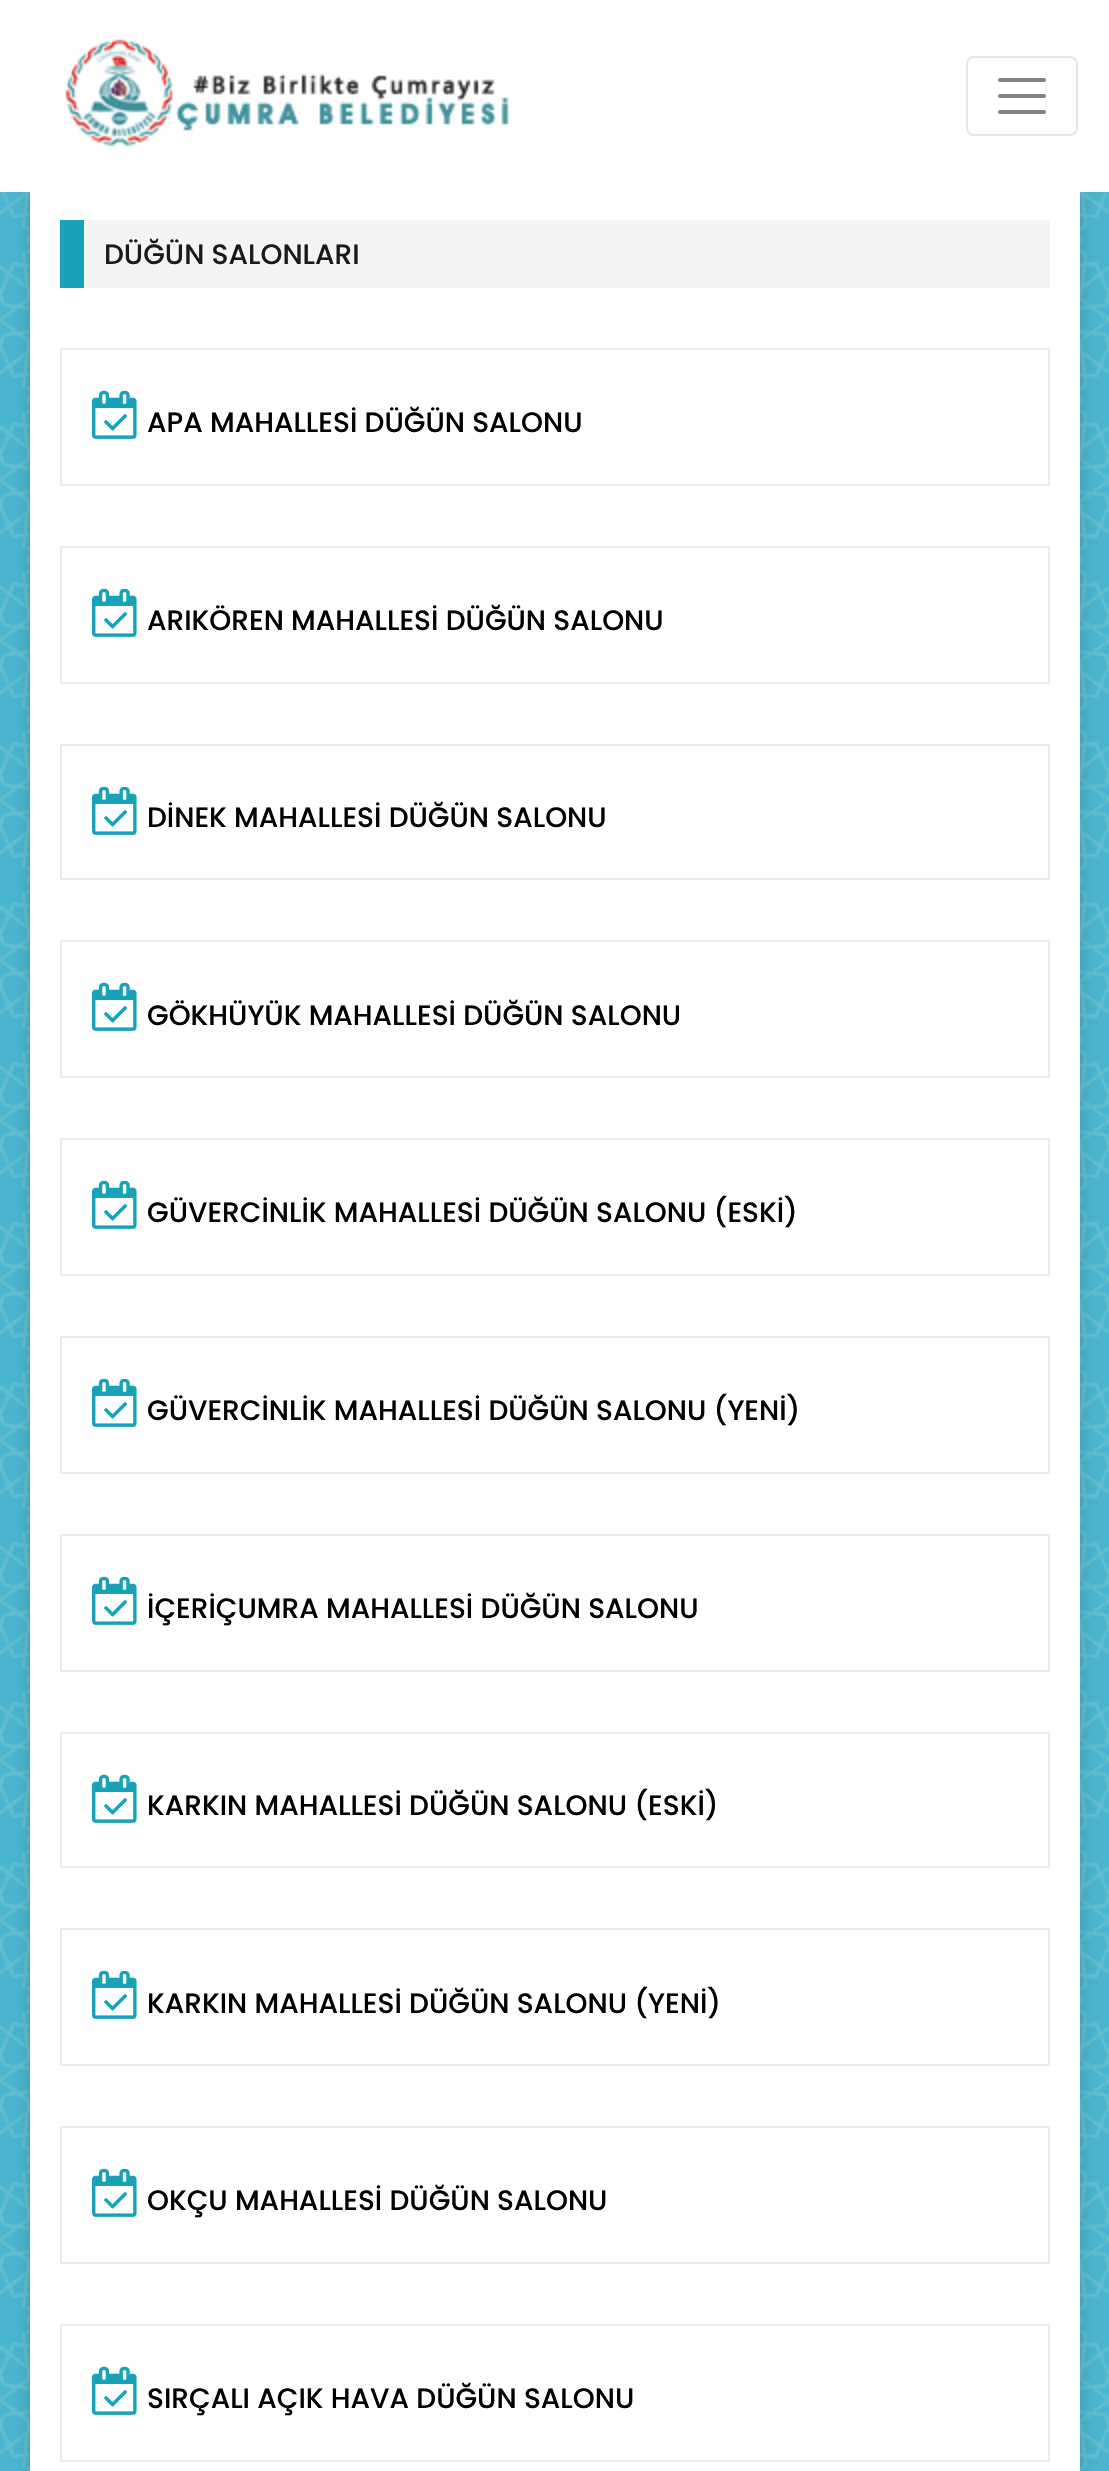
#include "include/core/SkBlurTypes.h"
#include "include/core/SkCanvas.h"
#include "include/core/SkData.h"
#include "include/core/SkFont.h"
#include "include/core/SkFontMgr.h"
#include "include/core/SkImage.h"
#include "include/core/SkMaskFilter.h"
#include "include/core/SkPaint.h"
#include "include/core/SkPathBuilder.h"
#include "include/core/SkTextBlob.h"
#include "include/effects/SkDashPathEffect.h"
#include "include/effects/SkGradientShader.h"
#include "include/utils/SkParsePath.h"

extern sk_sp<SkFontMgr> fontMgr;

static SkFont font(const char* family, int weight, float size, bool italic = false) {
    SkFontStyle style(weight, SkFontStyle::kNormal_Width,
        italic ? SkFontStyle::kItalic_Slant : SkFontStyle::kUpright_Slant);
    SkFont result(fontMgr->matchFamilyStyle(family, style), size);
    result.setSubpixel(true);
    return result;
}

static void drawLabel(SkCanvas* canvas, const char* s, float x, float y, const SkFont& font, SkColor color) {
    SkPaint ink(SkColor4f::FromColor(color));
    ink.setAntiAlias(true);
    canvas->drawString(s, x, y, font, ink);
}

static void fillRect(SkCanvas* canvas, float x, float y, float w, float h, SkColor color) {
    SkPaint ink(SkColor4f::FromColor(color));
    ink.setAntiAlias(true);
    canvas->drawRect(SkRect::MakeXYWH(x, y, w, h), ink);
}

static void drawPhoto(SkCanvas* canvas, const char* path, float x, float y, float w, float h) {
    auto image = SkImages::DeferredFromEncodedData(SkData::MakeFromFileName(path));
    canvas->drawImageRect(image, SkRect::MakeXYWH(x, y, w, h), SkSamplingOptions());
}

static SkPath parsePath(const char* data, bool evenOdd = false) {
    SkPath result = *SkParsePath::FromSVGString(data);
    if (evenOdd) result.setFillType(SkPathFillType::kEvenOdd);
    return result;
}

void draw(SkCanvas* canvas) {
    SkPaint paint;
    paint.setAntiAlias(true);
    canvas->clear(0xFFFFFFFF);
    drawPhoto(canvas, "assets/img1.png", 0, 192, 1109, 2279);
    paint.setColor(0x26000000);
    paint.setMaskFilter(SkMaskFilter::MakeBlur(kNormal_SkBlurStyle, 8));
    canvas->drawRect(SkRect::MakeXYWH(28, 188, 1054, 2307), paint);
    paint.setMaskFilter(nullptr);
    fillRect(canvas, 18, 176, 1074, 16, 0xFFFFFFFF);
    drawPhoto(canvas, "assets/img2.png", 65, 39, 444, 108);
    paint.setStroke(true);
    paint.setStrokeWidth(2);
    paint.setColor(0xFFE6E6E6);
    canvas->drawRoundRect(SkRect::MakeXYWH(967, 57, 110, 78), 7, 7, paint);
    paint.setStrokeWidth(4);
    paint.setStrokeCap(SkPaint::kRound_Cap);
    paint.setColor(0xFF808080);
    canvas->drawPath(parsePath("M1000 80H1044M1000 96H1044M1000 112H1044"), paint);
    fillRect(canvas, 30, 192, 1050, 2279, 0xFFFFFFFF);
    fillRect(canvas, 84, 220, 966, 68, 0xFFF2F4F5);
    fillRect(canvas, 60, 220, 24, 68, 0xFF17A2B8);
    SkFont font1 = font("Poppins", 500, 28);
    drawLabel(canvas, "DÜĞÜN SALONLARI", 104, 264, font1, 0xFF1A1A1A);
    paint.setStrokeWidth(2);
    paint.setStrokeCap(SkPaint::kButt_Cap);
    paint.setColor(0xFFEBEBEB);
    canvas->drawRect(SkRect::MakeXYWH(61, 349, 988, 136), paint);
    drawPhoto(canvas, "assets/img3.png", 92, 390, 45, 49);
    drawLabel(canvas, "APA MAHALLESİ DÜĞÜN SALONU", 147, 432, font1, 0xFF000000);
    canvas->drawRect(SkRect::MakeXYWH(61, 547, 988, 136), paint);
    drawPhoto(canvas, "assets/img3.png", 92, 588, 45, 49);
    drawLabel(canvas, "ARIKÖREN MAHALLESİ DÜĞÜN SALONU", 147, 630, font1, 0xFF000000);
    canvas->drawRect(SkRect::MakeXYWH(61, 745, 988, 134), paint);
    drawPhoto(canvas, "assets/img3.png", 92, 786, 45, 49);
    drawLabel(canvas, "DİNEK MAHALLESİ DÜĞÜN SALONU", 147, 827, font1, 0xFF000000);
    canvas->drawRect(SkRect::MakeXYWH(61, 941, 988, 136), paint);
    drawPhoto(canvas, "assets/img3.png", 92, 982, 45, 49);
    drawLabel(canvas, "GÖKHÜYÜK MAHALLESİ DÜĞÜN SALONU", 147, 1025, font1, 0xFF000000);
    canvas->drawRect(SkRect::MakeXYWH(61, 1139, 988, 136), paint);
    drawPhoto(canvas, "assets/img3.png", 92, 1180, 45, 49);
    drawLabel(canvas, "GÜVERCİNLİK MAHALLESİ DÜĞÜN SALONU (ESKİ)", 147, 1222, font1, 0xFF000000);
    canvas->drawRect(SkRect::MakeXYWH(61, 1337, 988, 136), paint);
    drawPhoto(canvas, "assets/img3.png", 92, 1378, 45, 49);
    drawLabel(canvas, "GÜVERCİNLİK MAHALLESİ DÜĞÜN SALONU (YENİ)", 147, 1420, font1, 0xFF000000);
    canvas->drawRect(SkRect::MakeXYWH(61, 1535, 988, 136), paint);
    drawPhoto(canvas, "assets/img3.png", 92, 1576, 45, 49);
    drawLabel(canvas, "İÇERİÇUMRA MAHALLESİ DÜĞÜN SALONU", 147, 1618, font1, 0xFF000000);
    canvas->drawRect(SkRect::MakeXYWH(61, 1733, 988, 134), paint);
    drawPhoto(canvas, "assets/img3.png", 92, 1774, 45, 49);
    drawLabel(canvas, "KARKIN MAHALLESİ DÜĞÜN SALONU (ESKİ)", 147, 1815, font1, 0xFF000000);
    canvas->drawRect(SkRect::MakeXYWH(61, 1929, 988, 136), paint);
    drawPhoto(canvas, "assets/img3.png", 92, 1970, 45, 49);
    drawLabel(canvas, "KARKIN MAHALLESİ DÜĞÜN SALONU (YENİ)", 147, 2013, font1, 0xFF000000);
    canvas->drawRect(SkRect::MakeXYWH(61, 2127, 988, 136), paint);
    drawPhoto(canvas, "assets/img3.png", 92, 2168, 45, 49);
    drawLabel(canvas, "OKÇU MAHALLESİ DÜĞÜN SALONU", 147, 2210, font1, 0xFF000000);
    canvas->drawRect(SkRect::MakeXYWH(61, 2325, 988, 136), paint);
    drawPhoto(canvas, "assets/img3.png", 92, 2366, 45, 49);
    drawLabel(canvas, "SIRÇALI AÇIK HAVA DÜĞÜN SALONU", 147, 2408, font1, 0xFF000000);
}
